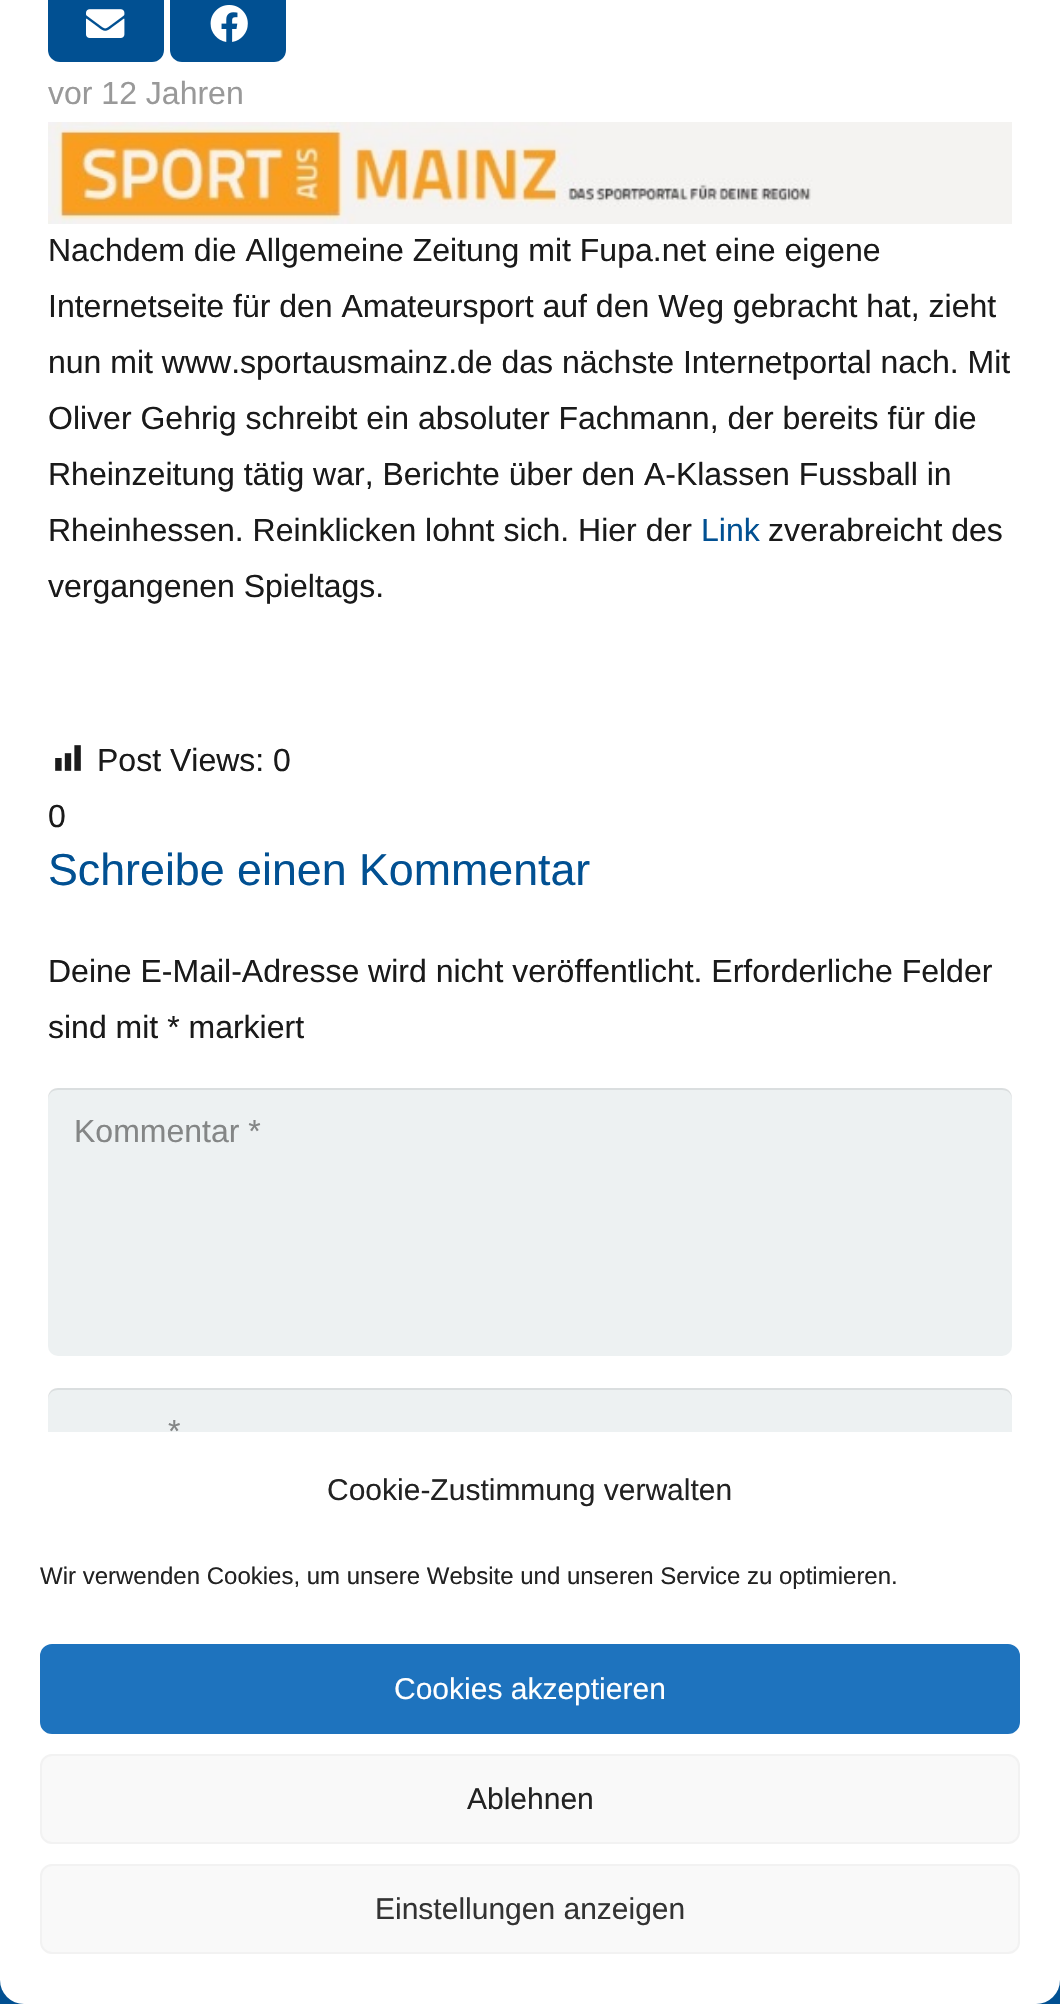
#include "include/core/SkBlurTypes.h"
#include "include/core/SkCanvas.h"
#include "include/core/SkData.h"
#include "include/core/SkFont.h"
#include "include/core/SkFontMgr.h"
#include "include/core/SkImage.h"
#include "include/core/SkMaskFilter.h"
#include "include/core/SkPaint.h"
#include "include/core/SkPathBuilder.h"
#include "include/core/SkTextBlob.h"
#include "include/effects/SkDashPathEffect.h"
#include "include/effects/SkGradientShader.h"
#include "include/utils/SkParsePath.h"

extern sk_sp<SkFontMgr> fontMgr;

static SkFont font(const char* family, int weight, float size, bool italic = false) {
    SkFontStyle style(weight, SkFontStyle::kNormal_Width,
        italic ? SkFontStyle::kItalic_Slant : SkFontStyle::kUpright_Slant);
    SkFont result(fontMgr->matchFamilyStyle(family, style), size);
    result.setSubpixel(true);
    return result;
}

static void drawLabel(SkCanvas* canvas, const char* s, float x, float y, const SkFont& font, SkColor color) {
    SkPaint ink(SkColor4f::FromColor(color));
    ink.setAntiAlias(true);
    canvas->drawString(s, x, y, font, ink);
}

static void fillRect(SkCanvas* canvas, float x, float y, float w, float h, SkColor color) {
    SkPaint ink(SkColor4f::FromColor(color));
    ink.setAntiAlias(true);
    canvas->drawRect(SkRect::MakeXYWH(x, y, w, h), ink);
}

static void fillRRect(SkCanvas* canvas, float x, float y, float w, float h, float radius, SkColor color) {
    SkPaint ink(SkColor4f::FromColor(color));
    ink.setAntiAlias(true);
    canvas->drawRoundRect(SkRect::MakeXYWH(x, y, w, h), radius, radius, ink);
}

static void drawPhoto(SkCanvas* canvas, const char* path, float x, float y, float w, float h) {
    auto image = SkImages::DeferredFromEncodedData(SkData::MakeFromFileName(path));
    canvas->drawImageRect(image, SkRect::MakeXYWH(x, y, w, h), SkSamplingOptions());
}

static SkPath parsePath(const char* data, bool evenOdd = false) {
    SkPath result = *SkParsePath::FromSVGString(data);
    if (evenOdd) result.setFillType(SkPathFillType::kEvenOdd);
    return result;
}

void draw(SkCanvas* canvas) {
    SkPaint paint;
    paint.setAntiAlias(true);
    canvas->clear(0xFFFFFFFF);
    fillRRect(canvas, 48, -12, 116, 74, 12, 0xFF015092);
    drawPhoto(canvas, "assets/img1.png", 86, 9, 39, 29);
    fillRRect(canvas, 170, -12, 116, 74, 12, 0xFF015092);
    drawPhoto(canvas, "assets/img2.png", 210, 5, 38, 37);
    SkFont font1 = font("Liberation Sans", 400, 32);
    drawLabel(canvas, "vor 12 Jahren", 48, 104, font1, 0xFF999999);
    drawPhoto(canvas, "assets/img3.png", 48, 122, 964, 102);
    drawLabel(canvas, "Nachdem die Allgemeine Zeitung mit Fupa.net eine eigene", 48, 261, font1, 0xFF1A1A1A);
    drawLabel(canvas, "Internetseite für den Amateursport auf den Weg gebracht hat, zieht", 48, 317, font1, 0xFF1A1A1A);
    drawLabel(canvas, "nun mit www.sportausmainz.de das nächste Internetportal nach. Mit", 48, 373, font1, 0xFF1A1A1A);
    drawLabel(canvas, "Oliver Gehrig schreibt ein absoluter Fachmann, der bereits für die", 48, 429, font1, 0xFF1A1A1A);
    drawLabel(canvas, "Rheinzeitung tätig war, Berichte über den A-Klassen Fussball in", 48, 485, font1, 0xFF1A1A1A);
    drawLabel(canvas, "Rheinhessen. Reinklicken lohnt sich. Hier der", 48, 541, font1, 0xFF1A1A1A);
    drawLabel(canvas, "Link", 701, 541, font1, 0xFF015092);
    drawLabel(canvas, "zverabreicht des", 768, 541, font1, 0xFF1A1A1A);
    drawLabel(canvas, "vergangenen Spieltags.", 48, 597, font1, 0xFF1A1A1A);
    drawPhoto(canvas, "assets/img4.png", 55, 745, 26, 26);
    drawLabel(canvas, "Post Views: 0", 97, 771, font1, 0xFF1A1A1A);
    drawLabel(canvas, "0", 48, 827, font1, 0xFF1A1A1A);
    SkFont font2 = font("Liberation Sans", 400, 44.75f);
    drawLabel(canvas, "Schreibe einen Kommentar", 48, 885, font2, 0xFF015092);
    drawLabel(canvas, "Deine E-Mail-Adresse wird nicht veröffentlicht. Erforderliche Felder", 48, 982, font1, 0xFF1A1A1A);
    drawLabel(canvas, "sind mit * markiert", 48, 1038, font1, 0xFF1A1A1A);
    fillRRect(canvas, 48, 1088, 964, 268, 10, 0xFFEDF1F2);
    paint.setColor(0x14000000);
    canvas->drawPath(parsePath("M58 1090H1002C1008 1090 1012 1094 1012 1100V1098C1012 1092 1008 1088 1002 1088H58C52 1088 48 1092 48 1098V1100C48 1094 52 1090 58 1090Z"), paint);
    drawLabel(canvas, "Kommentar *", 74, 1142, font1, 0xFF848686);
    fillRRect(canvas, 48, 1388, 964, 90, 10, 0xFFEDF1F2);
    canvas->drawPath(parsePath("M58 1390H1002C1008 1390 1012 1394 1012 1400V1398C1012 1392 1008 1388 1002 1388H58C52 1388 48 1392 48 1398V1400C48 1394 52 1390 58 1390Z"), paint);
    drawLabel(canvas, "*", 168, 1442, font1, 0xFF848686);
    fillRect(canvas, 0, 1980, 1060, 24, 0xFF015092);
    fillRRect(canvas, 0, 1432, 1060, 572, 24, 0xFFFFFFFF);
    SkFont font3 = font("Liberation Sans", 400, 30);
    drawLabel(canvas, "Cookie-Zustimmung verwalten", 327, 1500, font3, 0xFF222222);
    SkFont font4 = font("Liberation Sans", 400, 24);
    drawLabel(canvas, "Wir verwenden Cookies, um unsere Website und unseren Service zu optimieren.", 40, 1584, font4, 0xFF222222);
    paint.setColor(0xFF1E73BE);
    canvas->drawRoundRect(SkRect::MakeXYWH(41, 1645, 978, 88), 11, 11, paint);
    paint.setStroke(true);
    paint.setStrokeWidth(2);
    canvas->drawRoundRect(SkRect::MakeXYWH(41, 1645, 978, 88), 11, 11, paint);
    drawLabel(canvas, "Cookies akzeptieren", 394, 1699, font3, 0xFFFFFFFF);
    paint.setStroke(false);
    paint.setColor(0xFFF9F9F9);
    canvas->drawRoundRect(SkRect::MakeXYWH(41, 1755, 978, 88), 11, 11, paint);
    paint.setStroke(true);
    paint.setColor(0xFFF2F2F2);
    canvas->drawRoundRect(SkRect::MakeXYWH(41, 1755, 978, 88), 11, 11, paint);
    drawLabel(canvas, "Ablehnen", 467, 1809, font3, 0xFF222222);
    paint.setStroke(false);
    paint.setColor(0xFFF9F9F9);
    canvas->drawRoundRect(SkRect::MakeXYWH(41, 1865, 978, 88), 11, 11, paint);
    paint.setStroke(true);
    paint.setColor(0xFFF2F2F2);
    canvas->drawRoundRect(SkRect::MakeXYWH(41, 1865, 978, 88), 11, 11, paint);
    drawLabel(canvas, "Einstellungen anzeigen", 375, 1919, font3, 0xFF333333);
}
